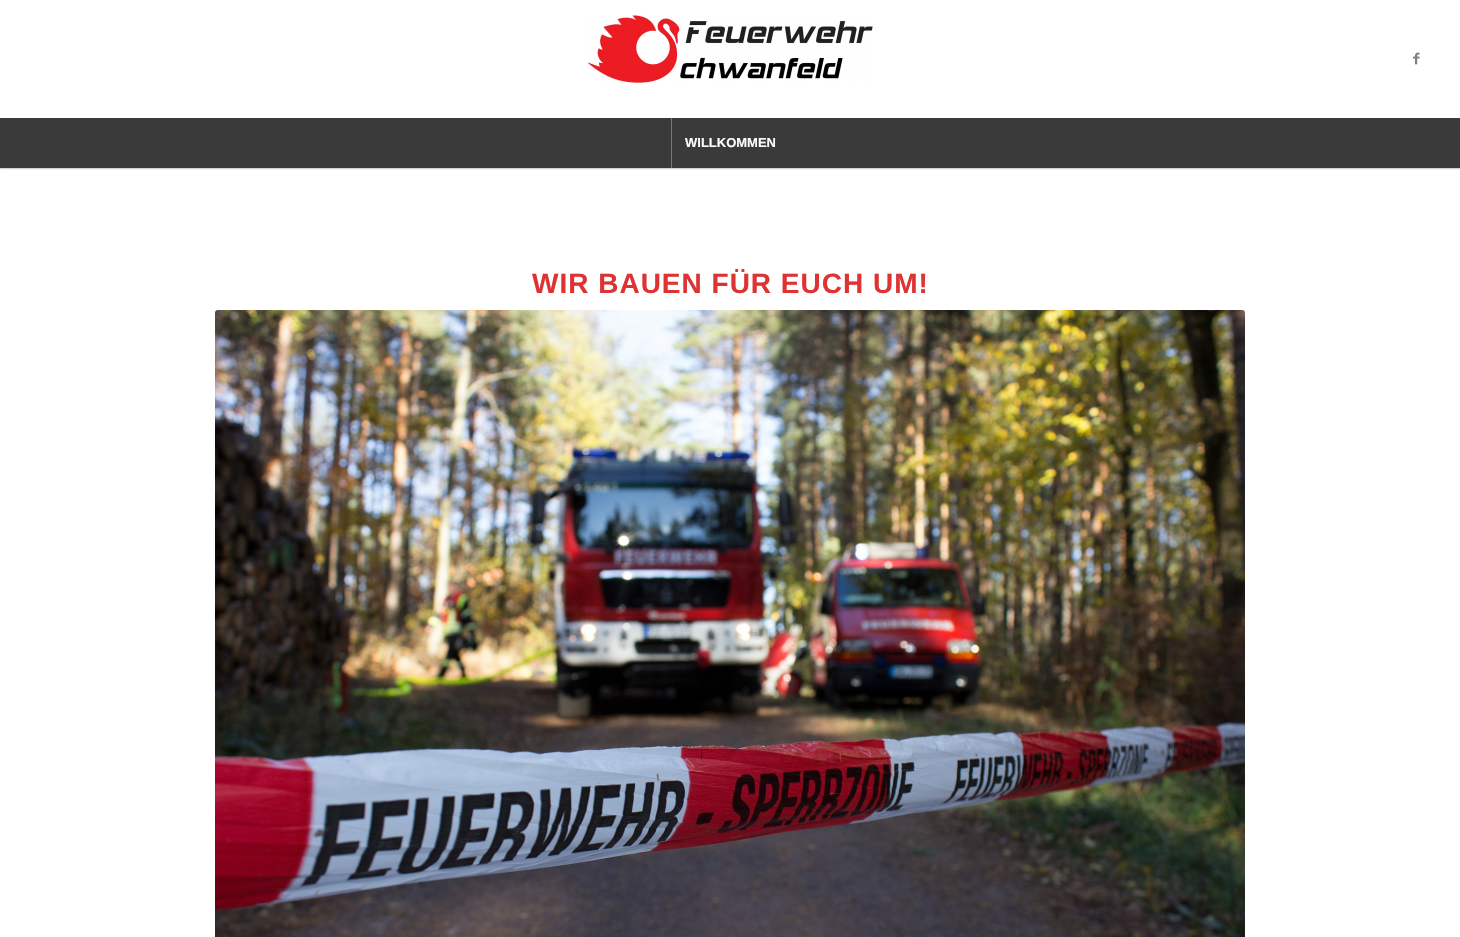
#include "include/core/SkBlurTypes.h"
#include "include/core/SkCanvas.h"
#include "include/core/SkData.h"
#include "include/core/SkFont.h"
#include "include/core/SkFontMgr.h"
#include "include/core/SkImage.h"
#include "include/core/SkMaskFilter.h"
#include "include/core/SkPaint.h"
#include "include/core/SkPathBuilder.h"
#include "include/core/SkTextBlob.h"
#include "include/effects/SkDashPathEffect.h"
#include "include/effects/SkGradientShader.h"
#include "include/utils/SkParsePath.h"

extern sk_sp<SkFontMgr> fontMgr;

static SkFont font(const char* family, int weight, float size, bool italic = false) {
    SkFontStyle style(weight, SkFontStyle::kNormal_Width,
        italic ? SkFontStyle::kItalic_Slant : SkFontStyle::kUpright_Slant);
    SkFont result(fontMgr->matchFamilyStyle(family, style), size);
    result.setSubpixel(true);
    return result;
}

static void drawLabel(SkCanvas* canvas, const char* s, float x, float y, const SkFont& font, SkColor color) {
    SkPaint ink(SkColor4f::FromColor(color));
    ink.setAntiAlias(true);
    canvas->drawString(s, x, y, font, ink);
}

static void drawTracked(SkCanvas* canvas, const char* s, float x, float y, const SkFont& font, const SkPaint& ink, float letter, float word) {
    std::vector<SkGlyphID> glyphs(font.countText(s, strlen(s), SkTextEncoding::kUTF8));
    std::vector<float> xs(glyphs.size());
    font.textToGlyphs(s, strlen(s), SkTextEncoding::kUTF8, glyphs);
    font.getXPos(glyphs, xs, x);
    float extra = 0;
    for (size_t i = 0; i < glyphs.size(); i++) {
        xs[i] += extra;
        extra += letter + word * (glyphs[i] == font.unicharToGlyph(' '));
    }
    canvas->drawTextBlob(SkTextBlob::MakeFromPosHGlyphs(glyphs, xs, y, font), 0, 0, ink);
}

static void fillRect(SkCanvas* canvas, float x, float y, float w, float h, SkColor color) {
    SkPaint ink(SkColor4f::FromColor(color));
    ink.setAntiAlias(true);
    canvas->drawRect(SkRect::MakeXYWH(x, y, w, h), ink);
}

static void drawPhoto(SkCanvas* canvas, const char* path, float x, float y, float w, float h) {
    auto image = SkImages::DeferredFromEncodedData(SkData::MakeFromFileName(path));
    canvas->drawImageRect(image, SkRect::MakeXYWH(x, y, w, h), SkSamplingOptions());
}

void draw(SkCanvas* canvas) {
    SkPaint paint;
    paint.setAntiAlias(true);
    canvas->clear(0xFFFFFFFF);
    fillRect(canvas, 0, 168, 1460, 1, 0xFFE1E1E1);
    canvas->save();
    canvas->clipRect(SkRect::MakeXYWH(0, 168, 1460, 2));
    paint.setColor(0x1A000000);
    paint.setMaskFilter(SkMaskFilter::MakeBlur(kNormal_SkBlurStyle, 1));
    canvas->drawRect(SkRect::MakeXYWH(-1, -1, 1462, 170), paint);
    paint.setMaskFilter(nullptr);
    canvas->restore();
    drawPhoto(canvas, "assets/img1.png", 587, 15, 286, 68);
    drawPhoto(canvas, "assets/img2.png", 1413, 52, 7, 13);
    fillRect(canvas, 0, 118, 1460, 50, 0xFF3A3A3A);
    fillRect(canvas, 671, 118, 1, 50, 0xFF777777);
    SkFont font1 = font("Liberation Sans", 700, 13);
    drawLabel(canvas, "WILLKOMMEN", 685, 147, font1, 0xFFFCFCFC);
    SkFont font2 = font("Liberation Sans", 700, 28);
    paint.setColor(0xFFDD3333);
    drawTracked(canvas, "WIR BAUEN FÜR EUCH UM!", 532, 293, font2, paint, 1, 0);
    drawPhoto(canvas, "assets/img3.png", 215, 310, 1030, 627);
}
